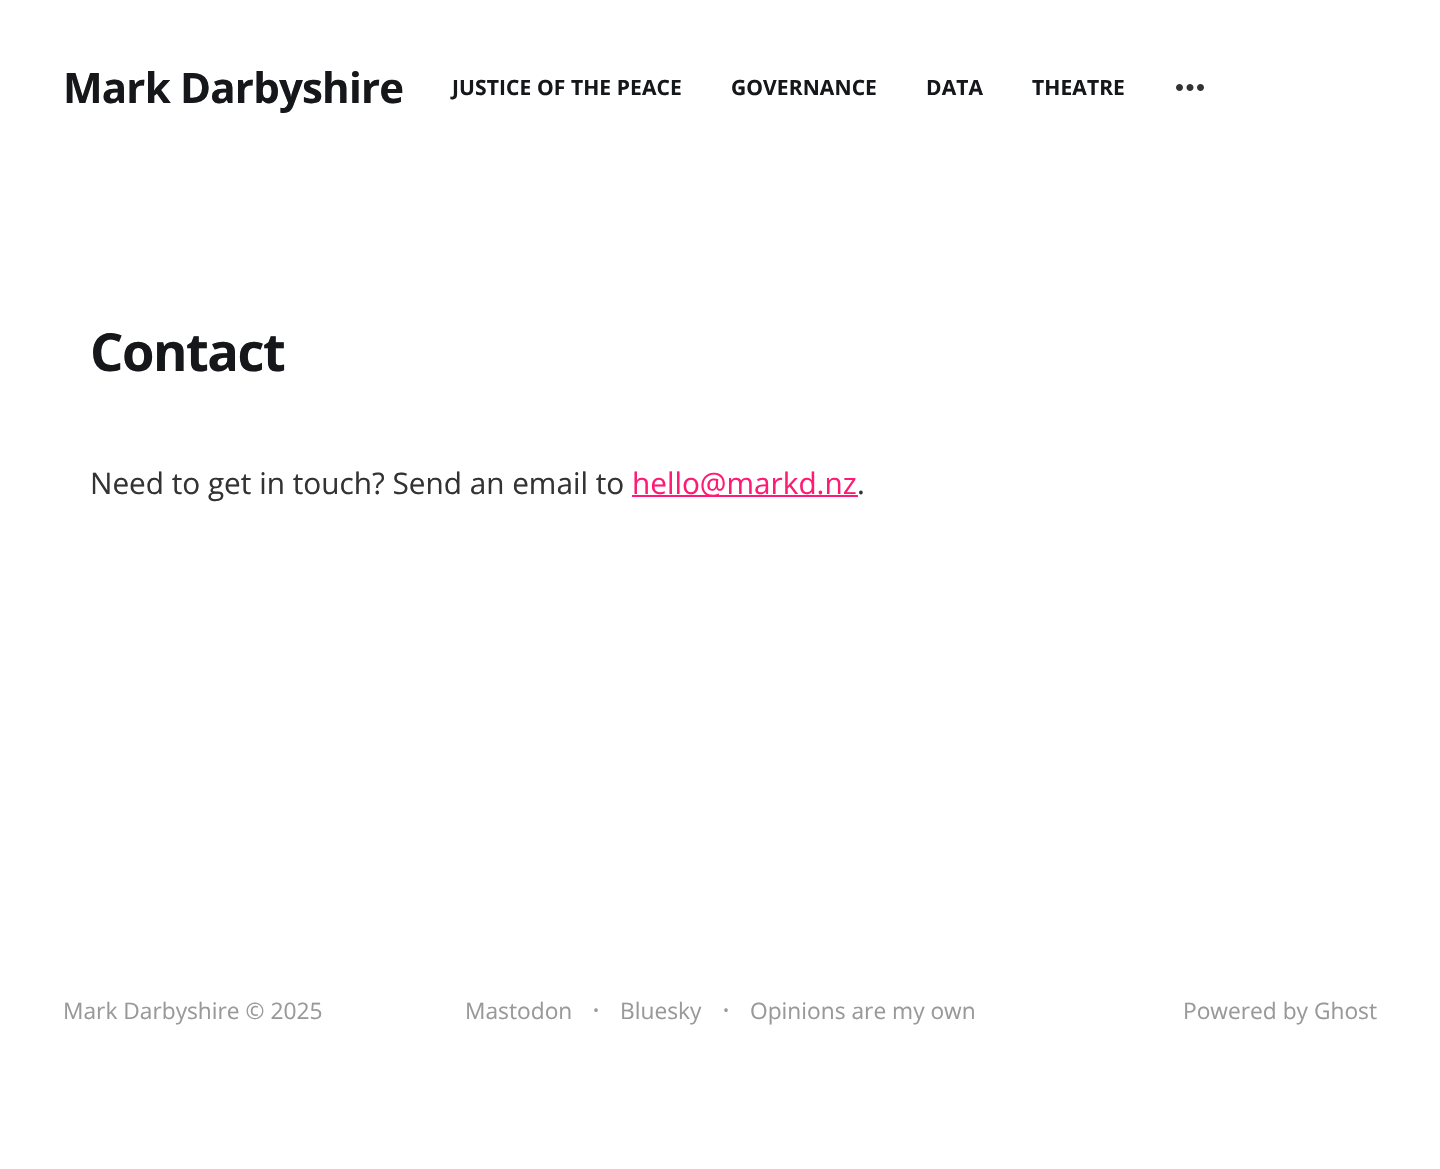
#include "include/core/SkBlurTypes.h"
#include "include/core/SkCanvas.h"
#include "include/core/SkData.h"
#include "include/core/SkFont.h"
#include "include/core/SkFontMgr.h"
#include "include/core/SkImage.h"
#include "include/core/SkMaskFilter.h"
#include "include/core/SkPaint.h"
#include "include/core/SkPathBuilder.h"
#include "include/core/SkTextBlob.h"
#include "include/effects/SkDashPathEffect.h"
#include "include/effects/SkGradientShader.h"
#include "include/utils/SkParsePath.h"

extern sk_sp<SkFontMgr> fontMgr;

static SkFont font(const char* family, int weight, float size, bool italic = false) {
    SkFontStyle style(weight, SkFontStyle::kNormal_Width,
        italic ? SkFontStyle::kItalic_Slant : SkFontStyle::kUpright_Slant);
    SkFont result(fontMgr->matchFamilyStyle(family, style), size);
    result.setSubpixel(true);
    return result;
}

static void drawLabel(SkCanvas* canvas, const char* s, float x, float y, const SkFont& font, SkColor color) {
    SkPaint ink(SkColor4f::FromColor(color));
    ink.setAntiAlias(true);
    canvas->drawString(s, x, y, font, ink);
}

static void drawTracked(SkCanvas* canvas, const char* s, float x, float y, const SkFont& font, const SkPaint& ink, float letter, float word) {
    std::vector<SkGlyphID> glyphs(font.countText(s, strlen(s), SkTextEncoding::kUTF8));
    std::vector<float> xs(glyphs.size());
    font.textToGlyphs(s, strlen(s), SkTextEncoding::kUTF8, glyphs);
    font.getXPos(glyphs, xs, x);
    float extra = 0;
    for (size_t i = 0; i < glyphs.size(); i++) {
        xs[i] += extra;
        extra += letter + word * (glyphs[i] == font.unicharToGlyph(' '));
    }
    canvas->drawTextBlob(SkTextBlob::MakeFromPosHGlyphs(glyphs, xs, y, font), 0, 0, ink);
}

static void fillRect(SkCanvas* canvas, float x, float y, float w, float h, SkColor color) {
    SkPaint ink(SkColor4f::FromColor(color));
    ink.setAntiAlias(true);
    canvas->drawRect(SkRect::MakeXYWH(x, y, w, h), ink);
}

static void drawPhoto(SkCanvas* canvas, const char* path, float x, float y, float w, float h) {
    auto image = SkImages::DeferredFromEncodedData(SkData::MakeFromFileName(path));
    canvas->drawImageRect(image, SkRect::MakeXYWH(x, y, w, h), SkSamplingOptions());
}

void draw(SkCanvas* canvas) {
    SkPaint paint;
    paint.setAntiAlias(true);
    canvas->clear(0xFFFFFFFF);
    SkFont font1 = font("Open Sans", 700, 42);
    paint.setColor(0xFF15171A);
    drawTracked(canvas, "Mark Darbyshire", 63, 103, font1, paint, -0.8f, 0);
    SkFont font2 = font("Open Sans", 700, 21);
    drawTracked(canvas, "JUSTICE OF THE PEACE", 452, 95, font2, paint, 0.1f, 0);
    drawTracked(canvas, "GOVERNANCE", 731, 95, font2, paint, 0.1f, 0);
    drawTracked(canvas, "DATA", 926, 95, font2, paint, 0.1f, 0);
    drawTracked(canvas, "THEATRE", 1032, 95, font2, paint, 0.1f, 0);
    drawPhoto(canvas, "assets/img1.png", 1176, 84, 28, 7);
    SkFont font3 = font("Open Sans", 700, 52.5f);
    drawTracked(canvas, "Contact", 90, 371, font3, paint, -1.5f, 0);
    SkFont font4 = font("Open Sans", 400, 29.75f);
    drawLabel(canvas, "Need to get in touch? Send an email to", 90, 494, font4, 0xFF333333);
    fillRect(canvas, 632, 495, 226, 2, 0xFFFF1A75);
    drawLabel(canvas, "hello@markd.nz", 632, 494, font4, 0xFFFF1A75);
    drawLabel(canvas, ".", 857, 494, font4, 0xFF333333);
    SkFont font5 = font("Open Sans", 400, 22.75f);
    drawLabel(canvas, "Mark Darbyshire © 2025", 63, 1019, font5, 0xFF999999);
    drawLabel(canvas, "Mastodon", 465, 1019, font5, 0xFF999999);
    SkFont font6 = font("Open Sans", 400, 16);
    drawLabel(canvas, "•", 593, 1016, font6, 0xFF999999);
    drawLabel(canvas, "Bluesky", 620, 1019, font5, 0xFF999999);
    drawLabel(canvas, "•", 723, 1016, font6, 0xFF999999);
    drawLabel(canvas, "Opinions are my own", 750, 1019, font5, 0xFF999999);
    drawLabel(canvas, "Powered by Ghost", 1183, 1019, font5, 0xFF999999);
}
